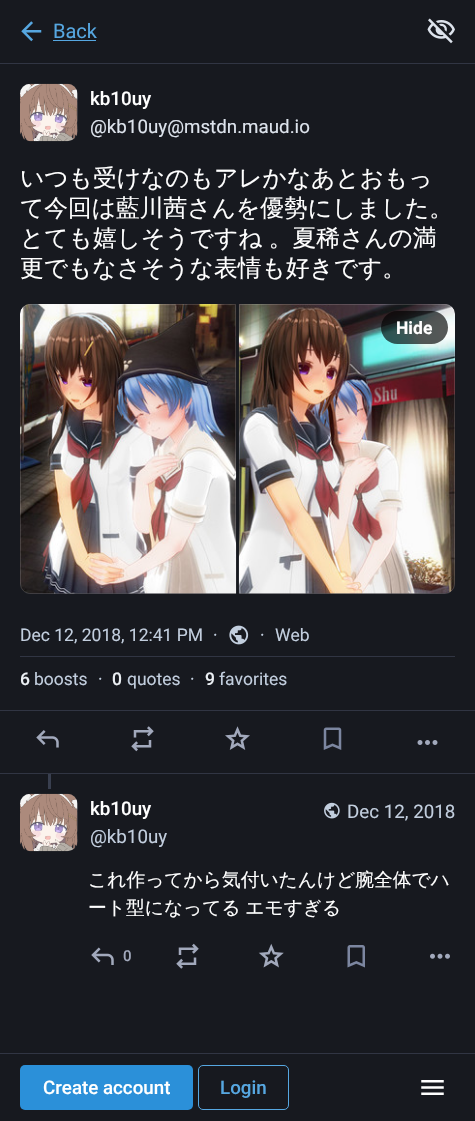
#include "include/core/SkBlurTypes.h"
#include "include/core/SkCanvas.h"
#include "include/core/SkData.h"
#include "include/core/SkFont.h"
#include "include/core/SkFontMgr.h"
#include "include/core/SkImage.h"
#include "include/core/SkMaskFilter.h"
#include "include/core/SkPaint.h"
#include "include/core/SkPathBuilder.h"
#include "include/core/SkTextBlob.h"
#include "include/effects/SkDashPathEffect.h"
#include "include/effects/SkGradientShader.h"
#include "include/utils/SkParsePath.h"

extern sk_sp<SkFontMgr> fontMgr;

static SkFont font(const char* family, int weight, float size, bool italic = false) {
    SkFontStyle style(weight, SkFontStyle::kNormal_Width,
        italic ? SkFontStyle::kItalic_Slant : SkFontStyle::kUpright_Slant);
    SkFont result(fontMgr->matchFamilyStyle(family, style), size);
    result.setSubpixel(true);
    return result;
}

static void drawLabel(SkCanvas* canvas, const char* s, float x, float y, const SkFont& font, SkColor color) {
    SkPaint ink(SkColor4f::FromColor(color));
    ink.setAntiAlias(true);
    canvas->drawString(s, x, y, font, ink);
}

static void drawTracked(SkCanvas* canvas, const char* s, float x, float y, const SkFont& font, const SkPaint& ink, float letter, float word) {
    std::vector<SkGlyphID> glyphs(font.countText(s, strlen(s), SkTextEncoding::kUTF8));
    std::vector<float> xs(glyphs.size());
    font.textToGlyphs(s, strlen(s), SkTextEncoding::kUTF8, glyphs);
    font.getXPos(glyphs, xs, x);
    float extra = 0;
    for (size_t i = 0; i < glyphs.size(); i++) {
        xs[i] += extra;
        extra += letter + word * (glyphs[i] == font.unicharToGlyph(' '));
    }
    canvas->drawTextBlob(SkTextBlob::MakeFromPosHGlyphs(glyphs, xs, y, font), 0, 0, ink);
}

static void fillRect(SkCanvas* canvas, float x, float y, float w, float h, SkColor color) {
    SkPaint ink(SkColor4f::FromColor(color));
    ink.setAntiAlias(true);
    canvas->drawRect(SkRect::MakeXYWH(x, y, w, h), ink);
}

static void fillRRect(SkCanvas* canvas, float x, float y, float w, float h, float radius, SkColor color) {
    SkPaint ink(SkColor4f::FromColor(color));
    ink.setAntiAlias(true);
    canvas->drawRoundRect(SkRect::MakeXYWH(x, y, w, h), radius, radius, ink);
}

static void drawPhoto(SkCanvas* canvas, const char* path, float x, float y, float w, float h) {
    auto image = SkImages::DeferredFromEncodedData(SkData::MakeFromFileName(path));
    canvas->drawImageRect(image, SkRect::MakeXYWH(x, y, w, h), SkSamplingOptions());
}

static SkPath parsePath(const char* data, bool evenOdd = false) {
    SkPath result = *SkParsePath::FromSVGString(data);
    if (evenOdd) result.setFillType(SkPathFillType::kEvenOdd);
    return result;
}

void draw(SkCanvas* canvas) {
    SkPaint paint;
    paint.setAntiAlias(true);
    canvas->clear(0xFF17191F);
    fillRect(canvas, 0, 63, 475, 1, 0xFF313543);
    drawPhoto(canvas, "assets/img1.png", 21, 21, 21, 21);
    SkFont font1 = font("Roboto", 400, 20);
    drawLabel(canvas, "Back", 53, 38, font1, 0xFF56A7E1);
    fillRect(canvas, 53, 40, 43, 1, 0xFF56A7E1);
    drawPhoto(canvas, "assets/img2.png", 427, 18, 28, 26);
    fillRRect(canvas, 20, 84, 58, 57, 10, 0xFF1F232B);
    drawPhoto(canvas, "assets/img3.png", 20, 83, 58, 59);
    SkFont font2 = font("Roboto", 500, 18.75f);
    drawLabel(canvas, "kb10uy", 90, 105, font2, 0xFFFFFFFF);
    SkFont font3 = font("Roboto", 400, 18.75f);
    drawLabel(canvas, "@kb10uy@mstdn.maud.io", 90, 133, font3, 0xFFDDE3EC);
    SkFont font4 = font("WenQuanYi Zen Hei", 500, 23.75f);
    drawLabel(canvas, "いつも受けなのもアレかなあとおもっ", 20, 186, font4, 0xFFFFFFFF);
    drawLabel(canvas, "て今回は藍川茜さんを優勢にしました。", 20, 216, font4, 0xFFFFFFFF);
    paint.setColor(0xFFFFFFFF);
    drawTracked(canvas, "とても嬉しそうですね 。夏稀さんの満", 20, 246, font4, paint, 0, -1);
    drawLabel(canvas, "更でもなさそうな表情も好きです。", 20, 276, font4, 0xFFFFFFFF);
    drawPhoto(canvas, "assets/img4.png", 20, 304, 217, 290);
    paint.setStroke(true);
    paint.setStrokeWidth(1);
    paint.setColor(0x26FCF8FF);
    canvas->drawPath(parsePath("M30 304.5H235.5V593.5H30C25 593.5 20.5 589 20.5 584V314C20.5 309 25 304.5 30 304.5Z"), paint);
    drawPhoto(canvas, "assets/img5.png", 238, 304, 217, 290);
    canvas->drawPath(parsePath("M239.5 304.5H445C450 304.5 454.5 309 454.5 314V584C454.5 589 450 593.5 445 593.5H239.5Z"), paint);
    fillRRect(canvas, 381, 311, 67, 33, 16.5f, 0xA6000000);
    SkFont font5 = font("Roboto", 700, 17.5f);
    drawLabel(canvas, "Hide", 396, 334, font5, 0xFFFFFFFF);
    fillRect(canvas, 20, 656, 435, 1, 0xFF313543);
    SkFont font6 = font("Roboto", 400, 17.5f);
    drawLabel(canvas, "Dec 12, 2018, 12:41 PM", 20, 641, font6, 0xFFC2CEDE);
    drawLabel(canvas, "·", 213, 641, font6, 0xFFC2CEDE);
    drawPhoto(canvas, "assets/img6.png", 229, 625, 20, 20);
    drawLabel(canvas, "·", 260, 641, font6, 0xFFC2CEDE);
    drawLabel(canvas, "Web", 275, 641, font6, 0xFFC2CEDE);
    SkFont font7 = font("Roboto", 500, 17.5f);
    drawLabel(canvas, "6", 20, 685, font7, 0xFFECF0F4);
    drawLabel(canvas, "boosts", 34, 685, font6, 0xFFC2CEDE);
    drawLabel(canvas, "·", 98, 685, font6, 0xFFC2CEDE);
    drawLabel(canvas, "0", 112, 685, font7, 0xFFECF0F4);
    drawLabel(canvas, "quotes", 127, 685, font6, 0xFFC2CEDE);
    drawLabel(canvas, "·", 190, 685, font6, 0xFFC2CEDE);
    drawLabel(canvas, "9", 205, 685, font7, 0xFFECF0F4);
    drawLabel(canvas, "favorites", 219, 685, font6, 0xFFC2CEDE);
    fillRect(canvas, 0, 710, 475, 1, 0xFF313543);
    fillRect(canvas, 0, 773, 475, 1, 0xFF313543);
    drawPhoto(canvas, "assets/img7.png", 36, 730, 23, 18);
    drawPhoto(canvas, "assets/img8.png", 131, 726, 23, 26);
    drawPhoto(canvas, "assets/img9.png", 225, 726, 25, 24);
    drawPhoto(canvas, "assets/img10.png", 323, 727, 19, 23);
    drawPhoto(canvas, "assets/img11.png", 417, 740, 21, 5);
    fillRect(canvas, 48, 774, 3, 15, 0xFF393F4F);
    fillRRect(canvas, 20, 794, 58, 57, 10, 0xFF1F232B);
    drawPhoto(canvas, "assets/img3.png", 20, 793, 58, 59);
    drawLabel(canvas, "kb10uy", 90, 815, font2, 0xFFFFFFFF);
    drawLabel(canvas, "@kb10uy", 90, 843, font3, 0xFFC2CEDE);
    drawPhoto(canvas, "assets/img12.png", 324, 802, 16, 17);
    drawLabel(canvas, "Dec 12, 2018", 347, 818, font3, 0xFFC2CEDE);
    SkFont font8 = font("WenQuanYi Zen Hei", 500, 18.75f);
    drawLabel(canvas, "これ作ってから気付いたんけど腕全体でハ", 88, 886, font8, 0xFFFFFFFF);
    paint.setStroke(false);
    paint.setColor(0xFFFFFFFF);
    drawTracked(canvas, "ート型になってる エモすぎる", 88, 914, font8, paint, 0, -1);
    drawPhoto(canvas, "assets/img13.png", 91, 947, 23, 18);
    SkFont font9 = font("Roboto", 500, 15);
    drawLabel(canvas, "0", 123, 961, font9, 0xFFA2A9BC);
    drawPhoto(canvas, "assets/img14.png", 176, 943, 23, 26);
    drawPhoto(canvas, "assets/img15.png", 258, 943, 26, 25);
    drawPhoto(canvas, "assets/img16.png", 347, 945, 18, 23);
    drawPhoto(canvas, "assets/img17.png", 430, 953, 20, 6);
    fillRect(canvas, 0, 1053, 475, 1, 0xFF313543);
    fillRRect(canvas, 20, 1065, 173, 45, 5, 0xFF2B90D9);
    drawLabel(canvas, "Create account", 43, 1094, font2, 0xFFFFFFFF);
    paint.setStroke(true);
    paint.setColor(0xFF56A7E1);
    canvas->drawRoundRect(SkRect::MakeXYWH(198.5f, 1065.5f, 90, 44), 4.5f, 4.5f, paint);
    drawLabel(canvas, "Login", 220, 1094, font2, 0xFF56A7E1);
    drawPhoto(canvas, "assets/img18.png", 421, 1080, 23, 15);
}
